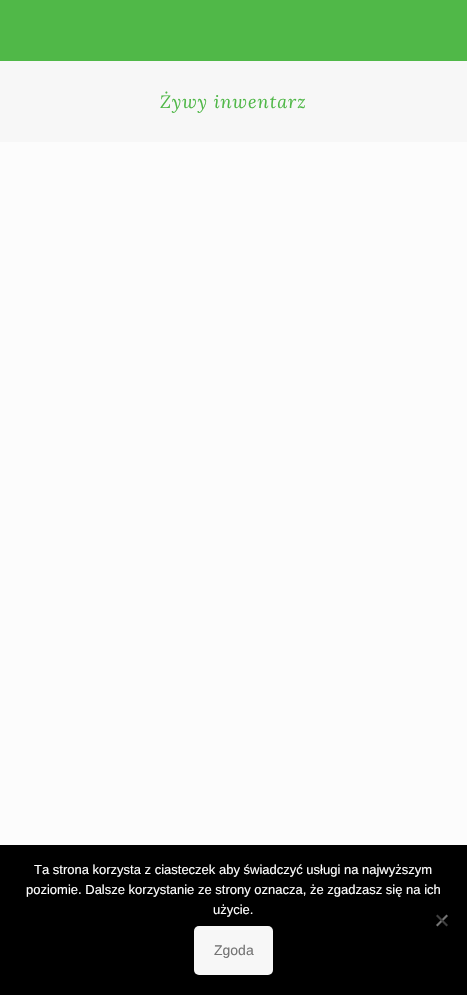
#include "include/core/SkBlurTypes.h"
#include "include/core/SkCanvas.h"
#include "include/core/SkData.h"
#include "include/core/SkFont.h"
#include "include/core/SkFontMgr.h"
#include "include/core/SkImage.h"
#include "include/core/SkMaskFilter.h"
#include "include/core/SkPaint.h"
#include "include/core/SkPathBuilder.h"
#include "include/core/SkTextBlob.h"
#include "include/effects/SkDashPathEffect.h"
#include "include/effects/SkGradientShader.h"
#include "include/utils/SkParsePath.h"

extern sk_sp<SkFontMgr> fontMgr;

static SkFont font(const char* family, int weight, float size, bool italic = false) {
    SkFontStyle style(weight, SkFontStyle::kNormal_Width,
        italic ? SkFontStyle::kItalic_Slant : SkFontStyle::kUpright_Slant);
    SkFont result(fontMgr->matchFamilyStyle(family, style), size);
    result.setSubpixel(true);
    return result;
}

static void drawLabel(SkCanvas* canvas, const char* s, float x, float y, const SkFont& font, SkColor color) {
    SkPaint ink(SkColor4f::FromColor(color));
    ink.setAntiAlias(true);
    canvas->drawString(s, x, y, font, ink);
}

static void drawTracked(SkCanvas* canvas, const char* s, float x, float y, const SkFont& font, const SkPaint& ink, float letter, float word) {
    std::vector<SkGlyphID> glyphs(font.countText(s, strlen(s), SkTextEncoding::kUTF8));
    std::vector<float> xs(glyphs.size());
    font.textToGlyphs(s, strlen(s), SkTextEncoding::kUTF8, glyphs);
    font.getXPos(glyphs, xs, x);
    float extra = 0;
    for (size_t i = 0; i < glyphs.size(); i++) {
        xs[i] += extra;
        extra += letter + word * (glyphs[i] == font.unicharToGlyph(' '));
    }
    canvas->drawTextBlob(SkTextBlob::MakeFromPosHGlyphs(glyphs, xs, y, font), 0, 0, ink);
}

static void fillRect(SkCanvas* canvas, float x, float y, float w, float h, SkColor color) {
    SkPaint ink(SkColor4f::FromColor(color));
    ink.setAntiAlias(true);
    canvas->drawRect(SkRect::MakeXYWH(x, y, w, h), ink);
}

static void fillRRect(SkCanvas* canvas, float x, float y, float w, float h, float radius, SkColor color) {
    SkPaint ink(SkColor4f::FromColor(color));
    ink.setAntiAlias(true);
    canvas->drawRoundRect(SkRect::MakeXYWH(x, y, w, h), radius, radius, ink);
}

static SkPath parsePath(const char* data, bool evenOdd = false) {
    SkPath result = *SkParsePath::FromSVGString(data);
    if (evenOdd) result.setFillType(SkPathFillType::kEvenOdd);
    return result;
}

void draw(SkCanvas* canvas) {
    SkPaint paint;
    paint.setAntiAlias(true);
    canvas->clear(0xFFFCFCFC);
    fillRect(canvas, 0, 0, 467, 61, 0xFF50B848);
    fillRect(canvas, 0, 61, 467, 81, 0xFFF7F7F7);
    SkFont font1 = font("Lora", 400, 18, true);
    paint.setColor(0xFF50B848);
    drawTracked(canvas, "Żywy inwentarz", 160, 108, font1, paint, 1, 0);
    fillRect(canvas, 0, 845, 467, 150, 0xFF000000);
    SkFont font2 = font("Liberation Sans", 400, 13);
    drawLabel(canvas, "Ta strona korzysta z ciasteczek aby świadczyć usługi na najwyższym", 34, 874, font2, 0xFFFFFFFF);
    drawLabel(canvas, "poziomie. Dalsze korzystanie ze strony oznacza, że zgadzasz się na ich", 26, 894, font2, 0xFFFFFFFF);
    drawLabel(canvas, "użycie.", 213, 914, font2, 0xFFFFFFFF);
    paint.setColor(0xFF757575);
    canvas->drawPath(parsePath("M446.5 914.5L448 916L437.5 926.5L436 925Z"), paint);
    paint.setColor(0xFF404040);
    canvas->drawPath(parsePath("M436 916L437.5 914.5L448 925L446.5 926.5Z"), paint);
    fillRRect(canvas, 194, 926, 79, 49, 5, 0xFFF7F7F7);
    SkFont font3 = font("Liberation Sans", 400, 14);
    drawLabel(canvas, "Zgoda", 214, 955, font3, 0xFF747474);
}
